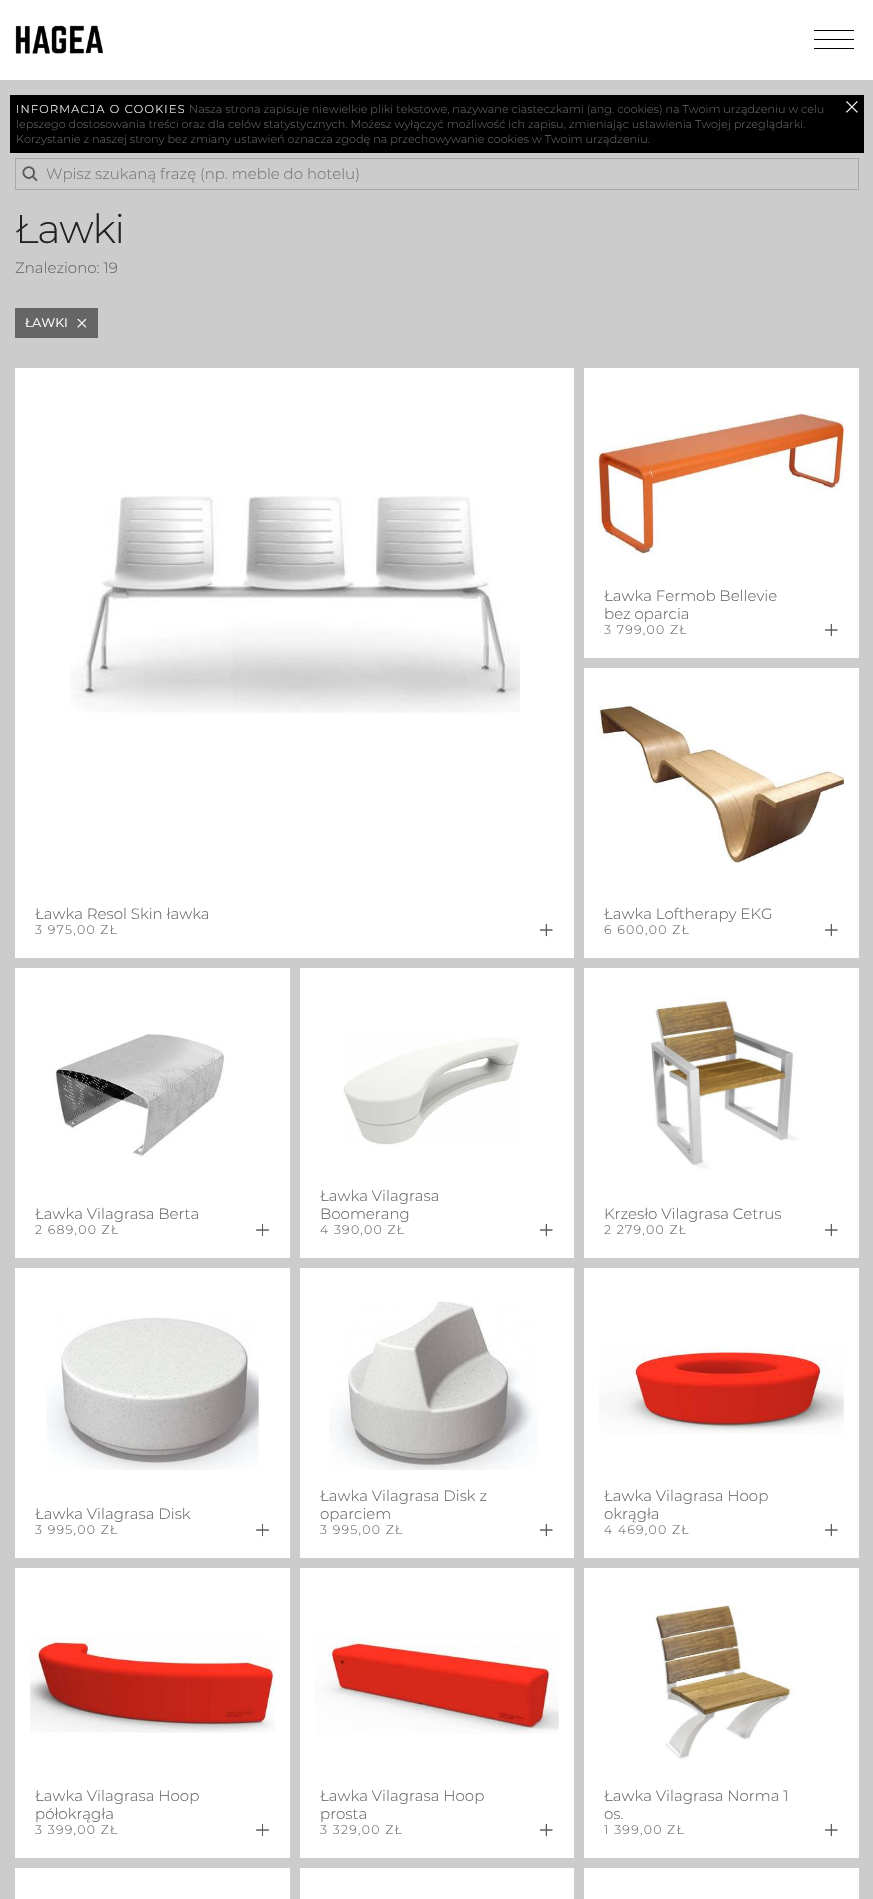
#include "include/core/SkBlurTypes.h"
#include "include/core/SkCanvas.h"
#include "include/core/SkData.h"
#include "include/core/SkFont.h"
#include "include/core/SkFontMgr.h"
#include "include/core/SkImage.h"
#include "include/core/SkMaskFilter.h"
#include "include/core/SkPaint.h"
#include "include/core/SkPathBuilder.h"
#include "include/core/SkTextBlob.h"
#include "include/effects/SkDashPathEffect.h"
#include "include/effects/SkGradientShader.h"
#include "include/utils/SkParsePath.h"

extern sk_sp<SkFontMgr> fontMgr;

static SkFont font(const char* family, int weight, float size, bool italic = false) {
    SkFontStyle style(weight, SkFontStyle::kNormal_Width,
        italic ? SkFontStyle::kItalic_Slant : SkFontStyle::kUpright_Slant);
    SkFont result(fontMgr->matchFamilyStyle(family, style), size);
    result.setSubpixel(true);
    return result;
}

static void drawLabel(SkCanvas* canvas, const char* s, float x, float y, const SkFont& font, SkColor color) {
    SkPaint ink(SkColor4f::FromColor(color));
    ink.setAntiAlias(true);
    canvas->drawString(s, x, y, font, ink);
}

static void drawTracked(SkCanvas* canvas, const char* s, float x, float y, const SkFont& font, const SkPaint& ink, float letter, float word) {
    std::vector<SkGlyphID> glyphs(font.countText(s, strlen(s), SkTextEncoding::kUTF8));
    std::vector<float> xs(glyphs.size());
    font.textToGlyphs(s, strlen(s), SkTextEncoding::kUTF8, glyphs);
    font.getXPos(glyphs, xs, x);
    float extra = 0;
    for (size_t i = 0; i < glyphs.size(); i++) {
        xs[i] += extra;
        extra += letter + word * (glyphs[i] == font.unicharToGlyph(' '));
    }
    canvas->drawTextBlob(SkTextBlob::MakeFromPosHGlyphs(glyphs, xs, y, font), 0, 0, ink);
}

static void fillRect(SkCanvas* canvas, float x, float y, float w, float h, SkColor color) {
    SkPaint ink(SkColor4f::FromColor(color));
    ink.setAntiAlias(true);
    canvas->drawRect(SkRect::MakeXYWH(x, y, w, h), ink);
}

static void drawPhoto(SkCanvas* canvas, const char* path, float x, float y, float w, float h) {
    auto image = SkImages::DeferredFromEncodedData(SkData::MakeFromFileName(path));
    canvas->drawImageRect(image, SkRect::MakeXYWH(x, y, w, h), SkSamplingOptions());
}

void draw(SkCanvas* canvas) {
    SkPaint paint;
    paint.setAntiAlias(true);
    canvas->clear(0xFFCCCCCC);
    fillRect(canvas, 0, 0, 873, 80, 0xFFFFFFFF);
    drawPhoto(canvas, "assets/img1.png", 15, 25, 88, 29);
    fillRect(canvas, 814, 30, 40, 1, 0xFF000000);
    fillRect(canvas, 814, 39, 40, 1, 0xFF000000);
    fillRect(canvas, 814, 48, 40, 1, 0xFF000000);
    fillRect(canvas, 10, 95, 854, 58, 0xFF000000);
    SkFont font1 = font("Montserrat", 300, 11.25f);
    paint.setColor(0xFFFFFFFF);
    drawTracked(canvas, "INFORMACJA O COOKIES", 16, 113, font1, paint, 1.25f, 0);
    drawLabel(canvas, "Nasza strona zapisuje niewielkie pliki tekstowe, nazywane ciasteczkami (ang. cookies) na Twoim urządzeniu w celu", 189, 113, font1, 0xFF666666);
    drawLabel(canvas, "lepszego dostosowania treści oraz dla celów statystycznych. Możesz wyłączyć możliwość ich zapisu, zmieniając ustawienia Twojej przeglądarki.", 16, 128, font1, 0xFF666666);
    drawLabel(canvas, "Korzystanie z naszej strony bez zmiany ustawień oznacza zgodę na przechowywanie cookies w Twoim urządzeniu.", 16, 143, font1, 0xFF666666);
    drawPhoto(canvas, "assets/img2.png", 846, 101, 12, 12);
    paint.setStroke(true);
    paint.setStrokeWidth(1);
    paint.setColor(0xFFA8A8A8);
    canvas->drawRect(SkRect::MakeXYWH(15.5f, 158.5f, 843, 31), paint);
    drawPhoto(canvas, "assets/img3.png", 22, 166, 16, 16);
    SkFont font2 = font("Montserrat", 300, 15);
    drawLabel(canvas, "Wpisz szukaną frazę (np. meble do hotelu)", 46, 179, font2, 0xFF757575);
    SkFont font3 = font("Montserrat", 300, 40);
    paint.setStroke(false);
    paint.setColor(0xFF222222);
    drawTracked(canvas, "Ławki", 15, 243, font3, paint, -1.25f, 0);
    drawLabel(canvas, "Znaleziono: 19", 15, 273, font2, 0xFF666666);
    fillRect(canvas, 15, 308, 83, 30, 0xFF666666);
    SkFont font4 = font("Montserrat", 400, 12.5f);
    drawLabel(canvas, "ŁAWKI", 25, 327, font4, 0xFFFFFFFF);
    drawPhoto(canvas, "assets/img4.png", 77, 318, 10, 10);
    fillRect(canvas, 584, 368, 275, 290, 0xFFFFFFFF);
    drawPhoto(canvas, "assets/img5.png", 598, 413, 246, 141);
    drawLabel(canvas, "Ławka Fermob Bellevie", 604, 601, font2, 0xFF666666);
    drawLabel(canvas, "bez oparcia", 604, 619, font2, 0xFF666666);
    SkFont font5 = font("Montserrat", 300, 12.5f);
    paint.setColor(0xFF666666);
    drawTracked(canvas, "3 799,00 ZŁ", 604, 634, font5, paint, 1.25f, 0);
    drawPhoto(canvas, "assets/img6.png", 825, 623, 13, 14);
    fillRect(canvas, 15, 368, 559, 590, 0xFFFFFFFF);
    drawPhoto(canvas, "assets/img7.png", 70, 495, 450, 218);
    drawLabel(canvas, "Ławka Resol Skin ławka", 35, 919, font2, 0xFF666666);
    drawTracked(canvas, "3 975,00 ZŁ", 35, 934, font5, paint, 1.25f, 0);
    drawPhoto(canvas, "assets/img8.png", 540, 923, 13, 14);
    fillRect(canvas, 584, 668, 275, 290, 0xFFFFFFFF);
    drawPhoto(canvas, "assets/img9.png", 598, 705, 246, 159);
    drawLabel(canvas, "Ławka Loftherapy EKG", 604, 919, font2, 0xFF666666);
    drawTracked(canvas, "6 600,00 ZŁ", 604, 934, font5, paint, 1.25f, 0);
    drawPhoto(canvas, "assets/img6.png", 825, 923, 13, 14);
    fillRect(canvas, 15, 968, 275, 290, 0xFFFFFFFF);
    drawPhoto(canvas, "assets/img10.png", 53, 1033, 172, 124);
    drawLabel(canvas, "Ławka Vilagrasa Berta", 35, 1219, font2, 0xFF666666);
    drawTracked(canvas, "2 689,00 ZŁ", 35, 1234, font5, paint, 1.25f, 0);
    drawPhoto(canvas, "assets/img11.png", 256, 1223, 13, 14);
    fillRect(canvas, 300, 968, 274, 290, 0xFFFFFFFF);
    drawPhoto(canvas, "assets/img12.png", 343, 1037, 177, 109);
    drawLabel(canvas, "Ławka Vilagrasa", 320, 1201, font2, 0xFF666666);
    drawLabel(canvas, "Boomerang", 320, 1219, font2, 0xFF666666);
    drawTracked(canvas, "4 390,00 ZŁ", 320, 1234, font5, paint, 1.25f, 0);
    drawPhoto(canvas, "assets/img8.png", 540, 1223, 13, 14);
    fillRect(canvas, 584, 968, 275, 290, 0xFFFFFFFF);
    drawPhoto(canvas, "assets/img13.png", 651, 997, 148, 173);
    drawLabel(canvas, "Krzesło Vilagrasa Cetrus", 604, 1219, font2, 0xFF666666);
    drawTracked(canvas, "2 279,00 ZŁ", 604, 1234, font5, paint, 1.25f, 0);
    drawPhoto(canvas, "assets/img6.png", 825, 1223, 13, 14);
    fillRect(canvas, 15, 1268, 275, 290, 0xFFFFFFFF);
    drawPhoto(canvas, "assets/img14.png", 46, 1317, 213, 153);
    drawLabel(canvas, "Ławka Vilagrasa Disk", 35, 1519, font2, 0xFF666666);
    drawTracked(canvas, "3 995,00 ZŁ", 35, 1534, font5, paint, 1.25f, 0);
    drawPhoto(canvas, "assets/img11.png", 256, 1523, 13, 14);
    fillRect(canvas, 300, 1268, 274, 290, 0xFFFFFFFF);
    drawPhoto(canvas, "assets/img15.png", 329, 1301, 209, 169);
    drawLabel(canvas, "Ławka Vilagrasa Disk z", 320, 1501, font2, 0xFF666666);
    drawLabel(canvas, "oparciem", 320, 1519, font2, 0xFF666666);
    drawTracked(canvas, "3 995,00 ZŁ", 320, 1534, font5, paint, 1.25f, 0);
    drawPhoto(canvas, "assets/img8.png", 540, 1523, 13, 14);
    fillRect(canvas, 584, 1268, 275, 290, 0xFFFFFFFF);
    drawPhoto(canvas, "assets/img16.png", 599, 1346, 245, 88);
    drawLabel(canvas, "Ławka Vilagrasa Hoop", 604, 1501, font2, 0xFF666666);
    drawLabel(canvas, "okrągła", 604, 1519, font2, 0xFF666666);
    drawTracked(canvas, "4 469,00 ZŁ", 604, 1534, font5, paint, 1.25f, 0);
    drawPhoto(canvas, "assets/img6.png", 825, 1523, 13, 14);
    fillRect(canvas, 15, 1568, 275, 290, 0xFFFFFFFF);
    drawPhoto(canvas, "assets/img17.png", 30, 1636, 245, 97);
    drawLabel(canvas, "Ławka Vilagrasa Hoop", 35, 1801, font2, 0xFF666666);
    drawLabel(canvas, "półokrągła", 35, 1819, font2, 0xFF666666);
    drawTracked(canvas, "3 399,00 ZŁ", 35, 1834, font5, paint, 1.25f, 0);
    drawPhoto(canvas, "assets/img11.png", 256, 1823, 13, 14);
    fillRect(canvas, 300, 1568, 274, 290, 0xFFFFFFFF);
    drawPhoto(canvas, "assets/img18.png", 315, 1635, 244, 99);
    drawLabel(canvas, "Ławka Vilagrasa Hoop", 320, 1801, font2, 0xFF666666);
    drawLabel(canvas, "prosta", 320, 1819, font2, 0xFF666666);
    drawTracked(canvas, "3 329,00 ZŁ", 320, 1834, font5, paint, 1.25f, 0);
    drawPhoto(canvas, "assets/img8.png", 540, 1823, 13, 14);
    fillRect(canvas, 584, 1568, 275, 290, 0xFFFFFFFF);
    drawPhoto(canvas, "assets/img19.png", 654, 1605, 142, 155);
    drawLabel(canvas, "Ławka Vilagrasa Norma 1", 604, 1801, font2, 0xFF666666);
    drawLabel(canvas, "os.", 604, 1819, font2, 0xFF666666);
    drawTracked(canvas, "1 399,00 ZŁ", 604, 1834, font5, paint, 1.25f, 0);
    drawPhoto(canvas, "assets/img6.png", 825, 1823, 13, 14);
    fillRect(canvas, 15, 1868, 275, 31, 0xFFFFFFFF);
    fillRect(canvas, 300, 1868, 274, 31, 0xFFFFFFFF);
    fillRect(canvas, 584, 1868, 275, 31, 0xFFFFFFFF);
}
